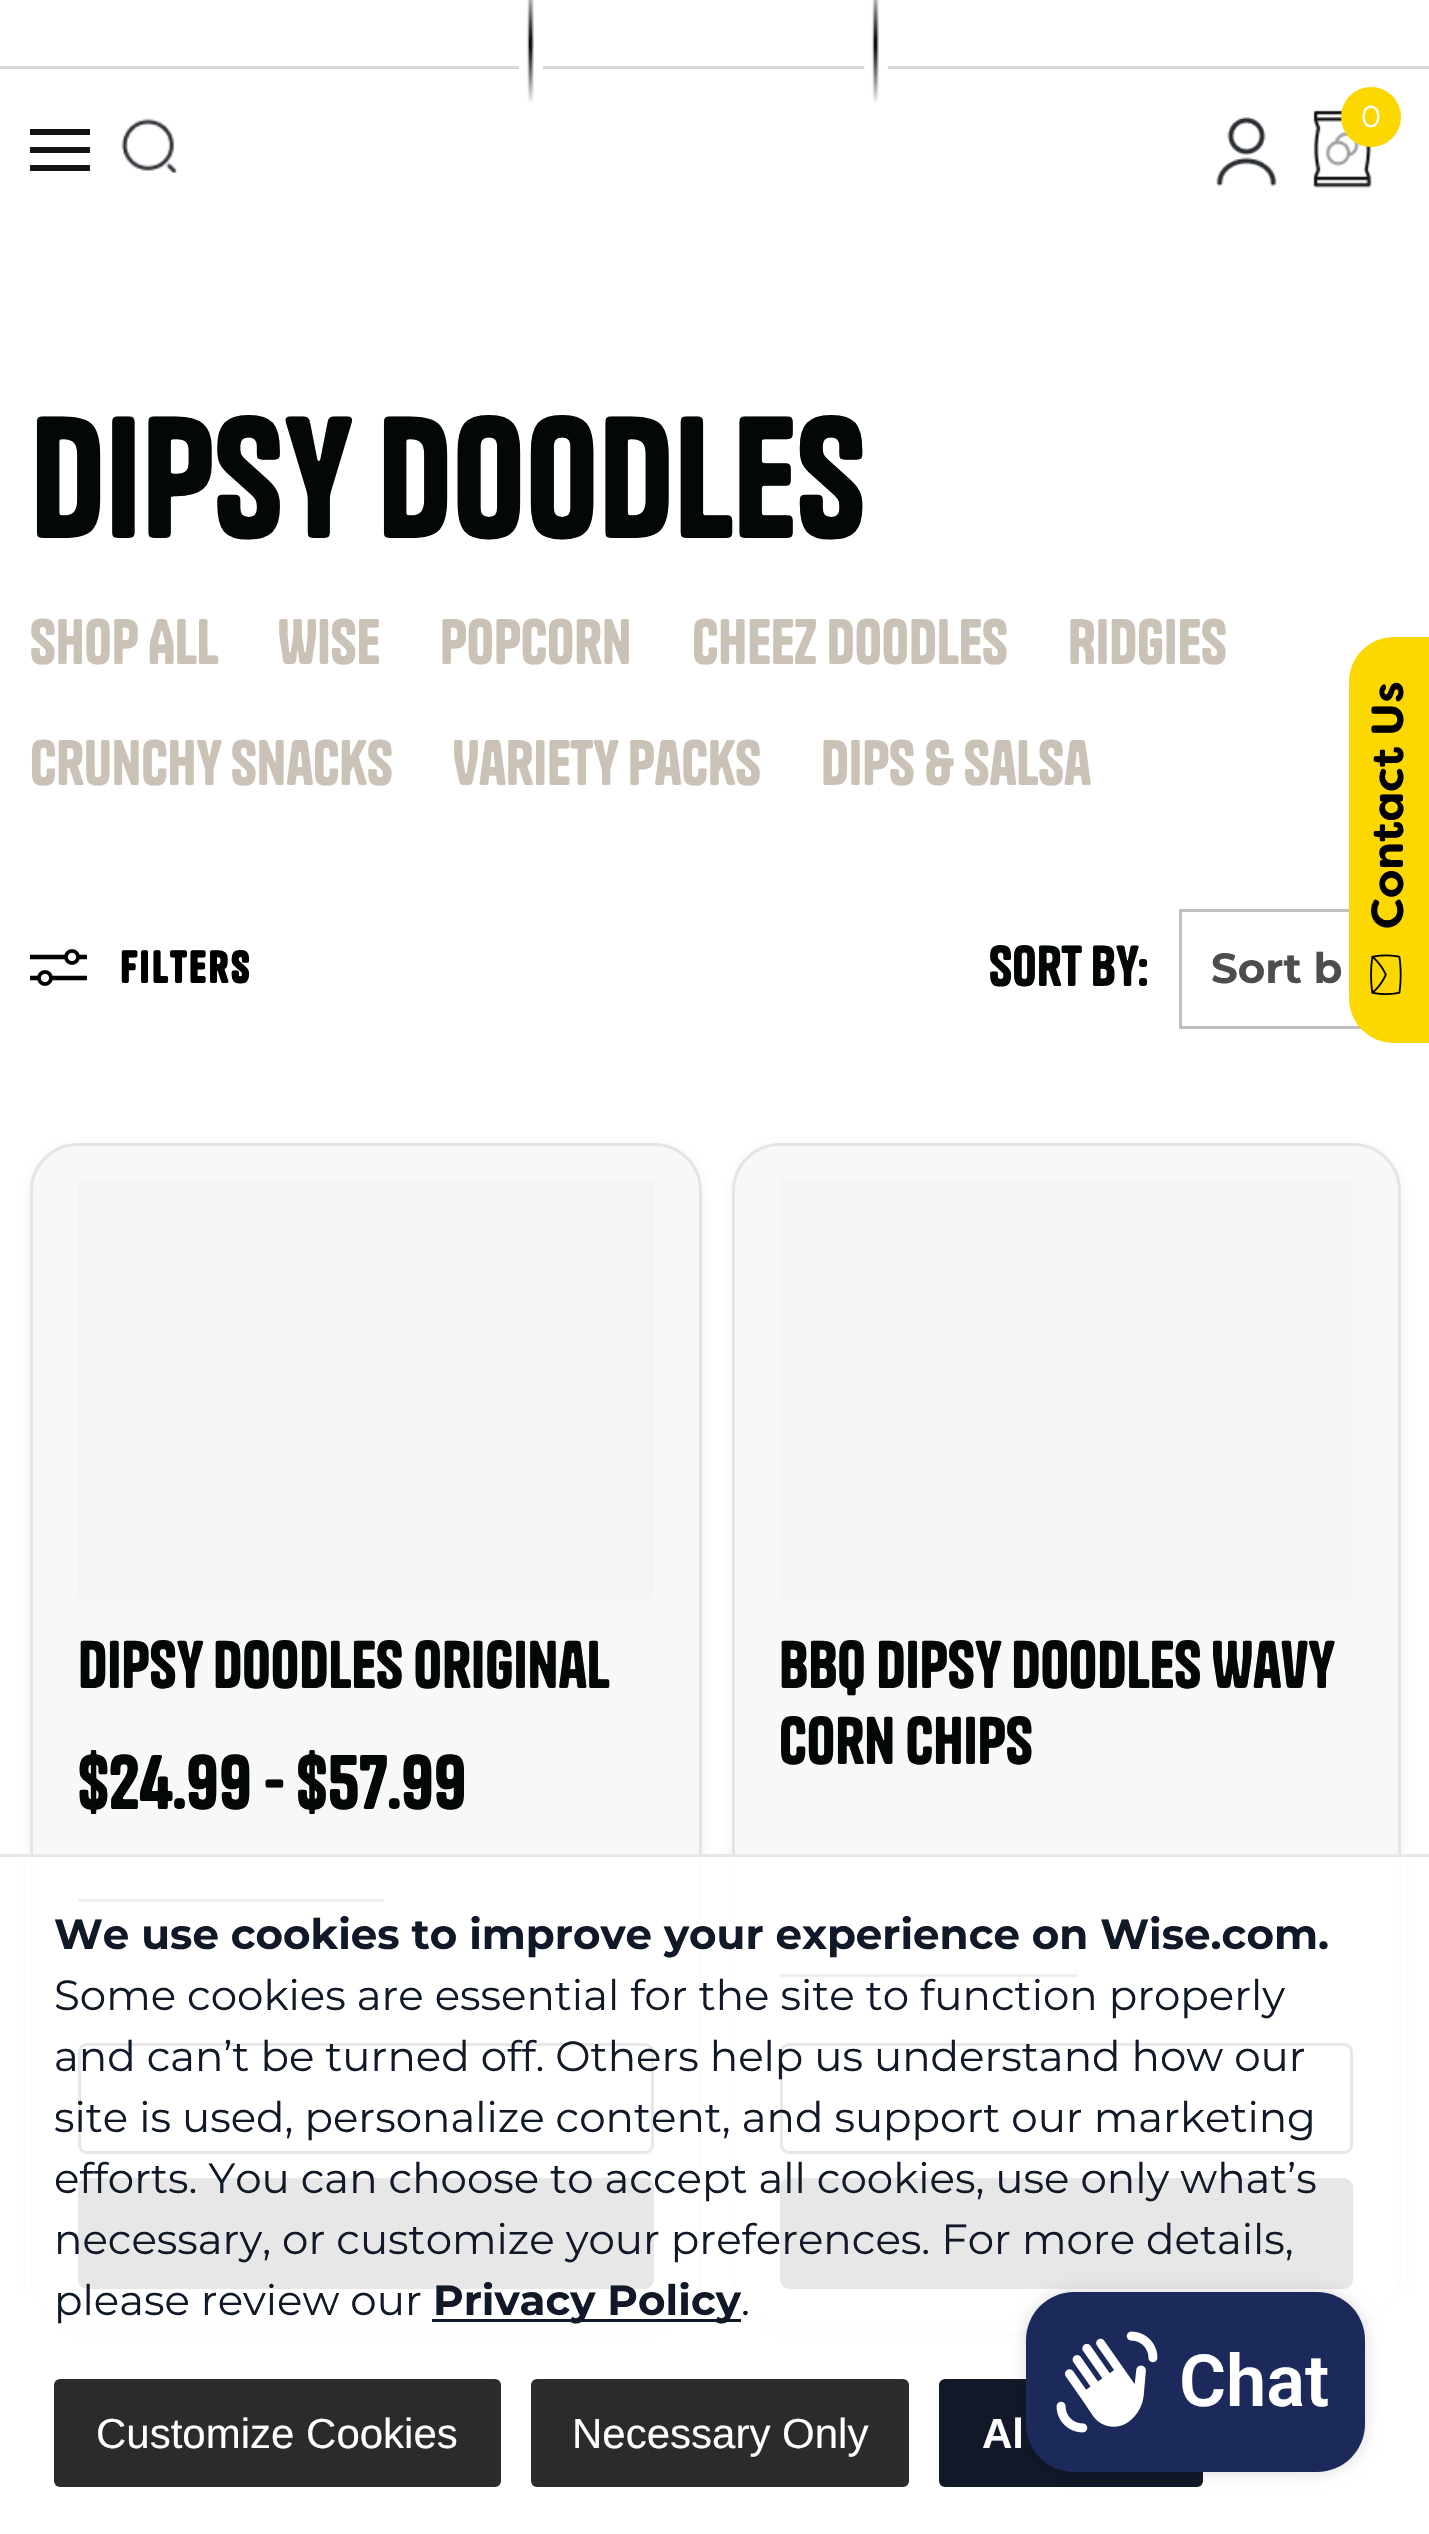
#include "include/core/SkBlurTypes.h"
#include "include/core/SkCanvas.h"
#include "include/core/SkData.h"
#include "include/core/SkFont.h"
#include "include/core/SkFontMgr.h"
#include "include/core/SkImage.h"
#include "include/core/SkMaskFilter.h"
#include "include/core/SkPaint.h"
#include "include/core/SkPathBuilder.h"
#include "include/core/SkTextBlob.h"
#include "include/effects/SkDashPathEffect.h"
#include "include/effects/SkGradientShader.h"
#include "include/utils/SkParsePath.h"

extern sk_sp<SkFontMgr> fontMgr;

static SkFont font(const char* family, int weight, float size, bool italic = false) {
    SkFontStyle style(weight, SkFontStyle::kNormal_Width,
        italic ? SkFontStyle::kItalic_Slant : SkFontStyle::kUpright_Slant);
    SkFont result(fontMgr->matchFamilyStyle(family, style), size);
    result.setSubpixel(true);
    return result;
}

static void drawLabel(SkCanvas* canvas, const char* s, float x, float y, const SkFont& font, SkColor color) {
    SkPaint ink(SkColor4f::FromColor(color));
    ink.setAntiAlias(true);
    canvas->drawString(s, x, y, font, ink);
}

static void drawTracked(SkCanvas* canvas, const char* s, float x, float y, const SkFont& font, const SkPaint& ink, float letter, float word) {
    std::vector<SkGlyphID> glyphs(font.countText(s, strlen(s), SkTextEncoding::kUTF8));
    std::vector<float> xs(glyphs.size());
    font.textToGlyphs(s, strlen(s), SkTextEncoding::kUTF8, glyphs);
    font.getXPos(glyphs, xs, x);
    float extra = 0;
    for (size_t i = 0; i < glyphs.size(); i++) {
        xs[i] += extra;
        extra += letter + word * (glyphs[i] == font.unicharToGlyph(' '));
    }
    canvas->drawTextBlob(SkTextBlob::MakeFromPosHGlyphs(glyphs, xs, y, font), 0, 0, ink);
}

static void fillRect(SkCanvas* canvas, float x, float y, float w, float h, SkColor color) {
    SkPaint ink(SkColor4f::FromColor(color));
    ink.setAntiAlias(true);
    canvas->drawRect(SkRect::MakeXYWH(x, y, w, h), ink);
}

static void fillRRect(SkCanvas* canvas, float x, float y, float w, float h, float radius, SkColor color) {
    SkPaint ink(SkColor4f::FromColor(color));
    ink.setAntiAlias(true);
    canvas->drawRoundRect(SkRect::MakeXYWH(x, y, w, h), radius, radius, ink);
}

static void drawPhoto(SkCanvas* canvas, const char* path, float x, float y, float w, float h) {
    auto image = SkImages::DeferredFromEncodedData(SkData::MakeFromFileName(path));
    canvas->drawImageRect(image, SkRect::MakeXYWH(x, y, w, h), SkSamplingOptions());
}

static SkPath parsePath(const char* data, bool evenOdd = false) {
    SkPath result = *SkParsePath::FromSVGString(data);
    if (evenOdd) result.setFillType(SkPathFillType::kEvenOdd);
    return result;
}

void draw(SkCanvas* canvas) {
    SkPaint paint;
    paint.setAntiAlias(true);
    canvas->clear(0xFFFFFFFF);
    fillRect(canvas, 0, 66, 1429, 3, 0xFFD7D7D7);
    drawPhoto(canvas, "assets/img1.png", 519, 0, 24, 102);
    drawPhoto(canvas, "assets/img1.png", 864, 0, 24, 102);
    fillRect(canvas, 30, 129, 60, 6, 0xFF141414);
    fillRect(canvas, 30, 147, 60, 6, 0xFF141414);
    fillRect(canvas, 30, 165, 60, 6, 0xFF141414);
    drawPhoto(canvas, "assets/img2.png", 121, 118, 57, 57);
    drawPhoto(canvas, "assets/img3.png", 1216, 117, 61, 70);
    drawPhoto(canvas, "assets/img4.png", 1313, 110, 59, 78);
    paint.setColor(0xFFFDD700);
    canvas->drawCircle(1371, 117, 30, paint);
    SkFont font1 = font("Montserrat", 400, 30);
    drawLabel(canvas, "0", 1361, 127, font1, 0xFFFFFFFF);
    SkFont font2 = font("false", 400, 162);
    drawLabel(canvas, "Dipsy Doodles", 30, 538, font2, 0xFF040707);
    SkFont font3 = font("false", 400, 60);
    drawLabel(canvas, "Shop All", 30, 664, font3, 0xFFCAC2B7);
    drawLabel(canvas, "Wise", 278, 664, font3, 0xFFCAC2B7);
    drawLabel(canvas, "Popcorn", 440, 664, font3, 0xFFCAC2B7);
    drawLabel(canvas, "Cheez Doodles", 692, 664, font3, 0xFFCAC2B7);
    drawLabel(canvas, "Ridgies", 1068, 664, font3, 0xFFCAC2B7);
    drawLabel(canvas, "Crunchy Snacks", 30, 785, font3, 0xFFCAC2B7);
    drawLabel(canvas, "Variety Packs", 453, 785, font3, 0xFFCAC2B7);
    drawLabel(canvas, "Dips & Salsa", 821, 785, font3, 0xFFCAC2B7);
    drawPhoto(canvas, "assets/img5.png", 30, 949, 57, 37);
    SkFont font4 = font("false", 700, 42);
    paint.setColor(0xFF000000);
    drawTracked(canvas, "Filters", 120, 983, font4, paint, 3, 0);
    SkFont font5 = font("false", 400, 54);
    drawLabel(canvas, "Sort by:", 989, 986, font5, 0xFF040707);
    paint.setStroke(true);
    paint.setStrokeWidth(3);
    paint.setColor(0xFFBFBFBF);
    canvas->drawRect(SkRect::MakeXYWH(1180.5f, 910.5f, 219, 117), paint);
    SkFont font6 = font("Montserrat", 700, 42);
    drawLabel(canvas, "Sort b", 1211, 983, font6, 0xFF4D4D4D);
    paint.setStroke(false);
    paint.setColor(0x1C808080);
    paint.setMaskFilter(SkMaskFilter::MakeBlur(kNormal_SkBlurStyle, 6));
    canvas->drawRoundRect(SkRect::MakeXYWH(30, 1146, 672, 1182), 48, 48, paint);
    paint.setMaskFilter(nullptr);
    paint.setColor(0xFFF8F8F8);
    canvas->drawRoundRect(SkRect::MakeXYWH(31.5f, 1144.5f, 669, 1179), 46.5f, 46.5f, paint);
    paint.setStroke(true);
    paint.setColor(0xFFE5E5E5);
    canvas->drawRoundRect(SkRect::MakeXYWH(31.5f, 1144.5f, 669, 1179), 46.5f, 46.5f, paint);
    fillRect(canvas, 78, 1179, 576, 420, 0xFFF5F5F5);
    SkFont font7 = font("false", 400, 63);
    drawLabel(canvas, "Dipsy Doodles Original", 78, 1688, font7, 0xFF040707);
    SkFont font8 = font("false", 400, 72);
    drawLabel(canvas, "$24.99 - $57.99", 78, 1809, font8, 0xFF040707);
    fillRect(canvas, 78, 1899, 306, 3, 0xFF4D4D4D);
    paint.setStroke(false);
    paint.setColor(0xFFFFFFFF);
    canvas->drawRoundRect(SkRect::MakeXYWH(79.5f, 2044.5f, 573, 108), 7.5f, 7.5f, paint);
    paint.setStroke(true);
    paint.setColor(0xFF040707);
    canvas->drawRoundRect(SkRect::MakeXYWH(79.5f, 2044.5f, 573, 108), 7.5f, 7.5f, paint);
    paint.setStroke(false);
    canvas->drawRoundRect(SkRect::MakeXYWH(79.5f, 2179.5f, 573, 108), 7.5f, 7.5f, paint);
    paint.setStroke(true);
    canvas->drawRoundRect(SkRect::MakeXYWH(79.5f, 2179.5f, 573, 108), 7.5f, 7.5f, paint);
    paint.setStroke(false);
    paint.setColor(0x1C808080);
    paint.setMaskFilter(SkMaskFilter::MakeBlur(kNormal_SkBlurStyle, 6));
    canvas->drawRoundRect(SkRect::MakeXYWH(732, 1146, 669, 1182), 48, 48, paint);
    paint.setMaskFilter(nullptr);
    paint.setColor(0xFFF8F8F8);
    canvas->drawRoundRect(SkRect::MakeXYWH(733.5f, 1144.5f, 666, 1179), 46.5f, 46.5f, paint);
    paint.setStroke(true);
    paint.setColor(0xFFE5E5E5);
    canvas->drawRoundRect(SkRect::MakeXYWH(733.5f, 1144.5f, 666, 1179), 46.5f, 46.5f, paint);
    fillRect(canvas, 780, 1179, 573, 420, 0xFFF5F5F5);
    drawLabel(canvas, "BBQ Dipsy Doodles Wavy", 779, 1688, font7, 0xFF040707);
    drawLabel(canvas, "Corn Chips", 779, 1764, font7, 0xFF040707);
    fillRect(canvas, 780, 1974, 297, 3, 0xFF4D4D4D);
    paint.setStroke(false);
    paint.setColor(0xFFFFFFFF);
    canvas->drawRoundRect(SkRect::MakeXYWH(781.5f, 2044.5f, 570, 108), 7.5f, 7.5f, paint);
    paint.setStroke(true);
    paint.setColor(0xFF040707);
    canvas->drawRoundRect(SkRect::MakeXYWH(781.5f, 2044.5f, 570, 108), 7.5f, 7.5f, paint);
    paint.setStroke(false);
    canvas->drawRoundRect(SkRect::MakeXYWH(781.5f, 2179.5f, 570, 108), 7.5f, 7.5f, paint);
    paint.setStroke(true);
    canvas->drawRoundRect(SkRect::MakeXYWH(781.5f, 2179.5f, 570, 108), 7.5f, 7.5f, paint);
    paint.setStroke(false);
    paint.setColor(0xFFFDD700);
    canvas->drawPath(parsePath("M1349 998V682C1349 657 1369 637 1394 637H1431V1043H1394C1369 1043 1349 1023 1349 998Z"), paint);
    SkFont font9 = font("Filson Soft", 700, 45);
    canvas->save();
    canvas->rotate(-90, 1403, 929);
    drawLabel(canvas, "Contact Us", 1403, 929, font9, 0xFF000000);
    canvas->restore();
    drawPhoto(canvas, "assets/img6.png", 1370, 954, 32, 41);
    fillRect(canvas, 25, 1857, 1381, 476, 0xE6FFFFFF);
    fillRect(canvas, 0, 1854, 1429, 3, 0xFFE5E7EB);
    drawLabel(canvas, "We use cookies to improve your experience on Wise.com.", 54, 1949, font6, 0xFF111827);
    SkFont font10 = font("Montserrat", 400, 42);
    drawLabel(canvas, "Some cookies are essential for the site to function properly", 54, 2010, font10, 0xFF111827);
    drawLabel(canvas, "and can’t be turned off. Others help us understand how our", 54, 2071, font10, 0xFF111827);
    drawLabel(canvas, "site is used, personalize content, and support our marketing", 54, 2132, font10, 0xFF111827);
    drawLabel(canvas, "efforts. You can choose to accept all cookies, use only what’s", 54, 2193, font10, 0xFF111827);
    drawLabel(canvas, "necessary, or customize your preferences. For more details,", 54, 2254, font10, 0xFF111827);
    drawLabel(canvas, "please review our", 54, 2315, font10, 0xFF111827);
    fillRect(canvas, 432, 2319, 309, 3, 0xFF111827);
    drawLabel(canvas, "Privacy Policy", 433, 2315, font6, 0xFF111827);
    drawLabel(canvas, ".", 741, 2315, font10, 0xFF111827);
    fillRRect(canvas, 54, 2379, 447, 108, 6, 0xFF2B2B2B);
    SkFont font11 = font("Liberation Sans", 400, 42);
    drawLabel(canvas, "Customize Cookies", 96, 2448, font11, 0xFFFFFFFF);
    fillRRect(canvas, 531, 2379, 378, 108, 6, 0xFF2B2B2B);
    drawLabel(canvas, "Necessary Only", 572, 2448, font11, 0xFFFFFFFF);
    fillRRect(canvas, 939, 2379, 264, 108, 6, 0xFF111827);
    SkFont font12 = font("Liberation Sans", 700, 42);
    drawLabel(canvas, "Al", 982, 2448, font12, 0xFFFFFFFF);
    paint.setColor(0x26000000);
    paint.setMaskFilter(SkMaskFilter::MakeBlur(kNormal_SkBlurStyle, 7.5f));
    canvas->drawRoundRect(SkRect::MakeXYWH(1026, 2292, 339, 180), 48, 48, paint);
    paint.setMaskFilter(nullptr);
    fillRRect(canvas, 1026, 2292, 339, 180, 48, 0xFF1B295B);
    drawPhoto(canvas, "assets/img7.png", 1056, 2331, 102, 102);
    SkFont font13 = font("Roboto", 600, 72);
    drawLabel(canvas, "Chat", 1179, 2406, font13, 0xFFFFFFFF);
}
